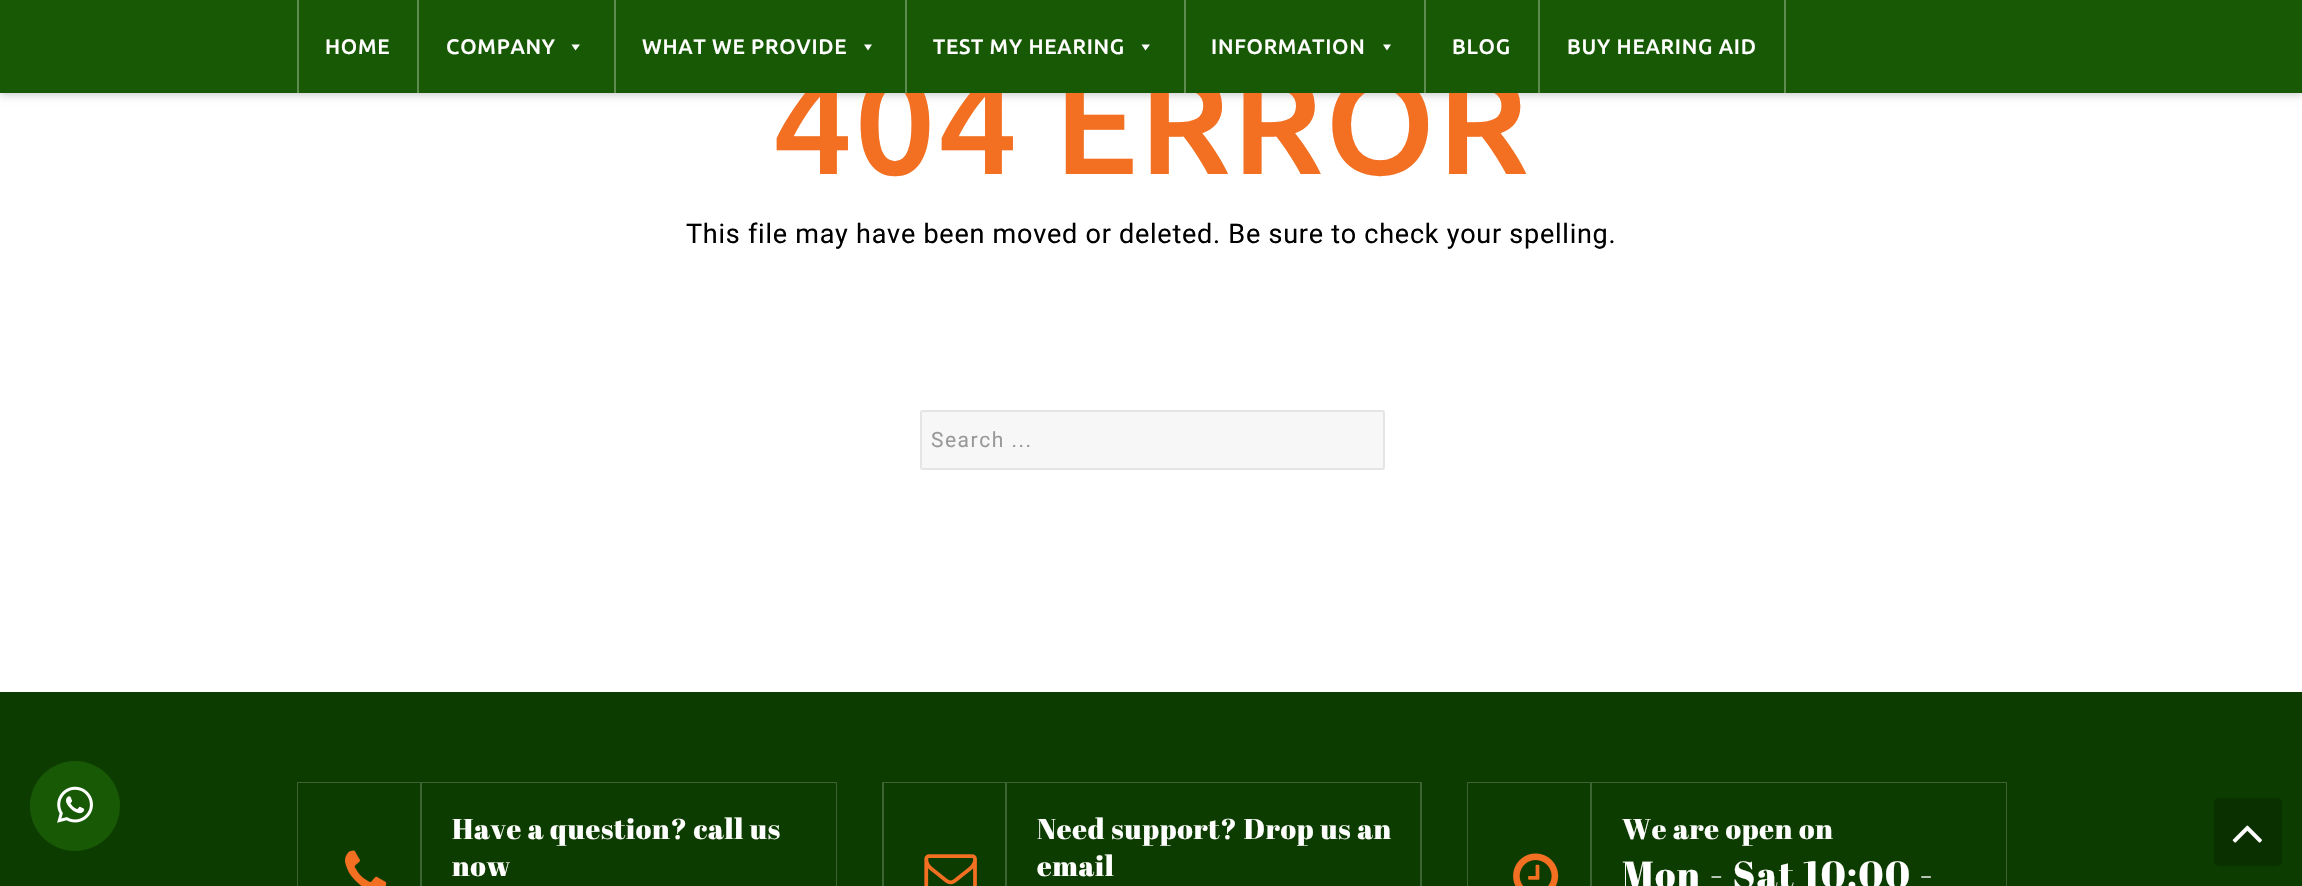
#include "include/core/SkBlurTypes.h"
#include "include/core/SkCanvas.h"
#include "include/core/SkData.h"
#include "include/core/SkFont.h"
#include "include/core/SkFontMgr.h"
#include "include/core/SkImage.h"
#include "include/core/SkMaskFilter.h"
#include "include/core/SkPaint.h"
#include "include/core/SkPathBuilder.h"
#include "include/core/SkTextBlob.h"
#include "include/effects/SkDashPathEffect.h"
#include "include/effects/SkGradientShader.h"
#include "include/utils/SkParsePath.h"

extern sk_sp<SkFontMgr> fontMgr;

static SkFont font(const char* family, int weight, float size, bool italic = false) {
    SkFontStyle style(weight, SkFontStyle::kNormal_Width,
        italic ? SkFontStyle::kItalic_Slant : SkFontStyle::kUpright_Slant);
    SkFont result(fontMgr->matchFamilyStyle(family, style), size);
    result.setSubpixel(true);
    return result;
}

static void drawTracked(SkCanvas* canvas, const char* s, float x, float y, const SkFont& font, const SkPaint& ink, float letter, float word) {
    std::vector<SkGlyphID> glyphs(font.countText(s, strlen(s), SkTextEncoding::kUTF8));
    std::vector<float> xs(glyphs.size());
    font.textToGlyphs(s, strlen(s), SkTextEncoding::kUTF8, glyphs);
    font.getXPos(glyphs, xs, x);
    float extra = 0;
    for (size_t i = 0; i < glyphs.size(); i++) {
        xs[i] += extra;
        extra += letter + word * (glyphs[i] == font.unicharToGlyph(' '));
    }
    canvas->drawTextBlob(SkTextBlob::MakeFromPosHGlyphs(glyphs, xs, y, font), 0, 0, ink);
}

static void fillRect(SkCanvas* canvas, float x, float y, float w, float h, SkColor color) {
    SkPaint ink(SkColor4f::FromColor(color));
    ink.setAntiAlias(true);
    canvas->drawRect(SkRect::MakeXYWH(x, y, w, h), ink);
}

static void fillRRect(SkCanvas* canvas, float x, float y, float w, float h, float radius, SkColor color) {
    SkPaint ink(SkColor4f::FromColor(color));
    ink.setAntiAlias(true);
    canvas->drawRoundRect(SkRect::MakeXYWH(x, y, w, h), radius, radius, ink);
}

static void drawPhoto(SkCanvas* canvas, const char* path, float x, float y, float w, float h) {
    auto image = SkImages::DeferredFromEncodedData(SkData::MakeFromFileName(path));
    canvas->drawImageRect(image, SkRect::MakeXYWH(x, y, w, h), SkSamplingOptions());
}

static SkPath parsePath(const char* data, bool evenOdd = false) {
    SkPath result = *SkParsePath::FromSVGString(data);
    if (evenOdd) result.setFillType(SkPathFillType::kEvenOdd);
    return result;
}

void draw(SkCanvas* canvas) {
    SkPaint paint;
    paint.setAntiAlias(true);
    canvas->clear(0xFF0D3C00);
    paint.setColor(0xFF185905);
    canvas->drawCircle(75, 806, 45, paint);
    drawPhoto(canvas, "assets/img1.png", 57, 786, 36, 37);
    fillRect(canvas, 0, 93, 2302, 599, 0xFFFFFFFF);
    paint.setColor(0x33000000);
    paint.setMaskFilter(SkMaskFilter::MakeBlur(kNormal_SkBlurStyle, 4));
    canvas->drawRect(SkRect::MakeXYWH(0, 2, 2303, 93), paint);
    paint.setMaskFilter(nullptr);
    SkFont font1 = font("Ubuntu", 500, 142.5f);
    paint.setColor(0xFFF36F21);
    drawTracked(canvas, "404 ERROR", 772, 174, font1, paint, 1.5f, 0);
    fillRect(canvas, 0, 0, 2302, 93, 0xFF185905);
    fillRect(canvas, 1784, 0, 2, 93, 0xFF5D8B50);
    fillRect(canvas, 297, 0, 2, 93, 0xFF5D8B50);
    SkFont font2 = font("Ubuntu", 500, 21);
    paint.setColor(0xFFFFFFFF);
    drawTracked(canvas, "HOME", 325, 54, font2, paint, 0.75f, 0);
    fillRect(canvas, 417, 0, 2, 93, 0xFF5D8B50);
    drawTracked(canvas, "COMPANY", 446, 54, font2, paint, 0.75f, 0);
    canvas->drawPath(parsePath("M580 44.5L575.5 50.5L571.5 44.5Z"), paint);
    fillRect(canvas, 614, 0, 2, 93, 0xFF5D8B50);
    drawTracked(canvas, "WHAT WE PROVIDE", 642, 54, font2, paint, 0.75f, 0);
    canvas->drawPath(parsePath("M872 44.5L868 50.5L864 44.5Z"), paint);
    fillRect(canvas, 905, 0, 2, 93, 0xFF5D8B50);
    drawTracked(canvas, "TEST MY HEARING", 933, 54, font2, paint, 0.75f, 0);
    canvas->drawPath(parsePath("M1150 44.5L1145.5 50.5L1141.5 44.5Z"), paint);
    fillRect(canvas, 1184, 0, 2, 93, 0xFF5D8B50);
    drawTracked(canvas, "INFORMATION", 1211, 54, font2, paint, 0.75f, 0);
    canvas->drawPath(parsePath("M1391 44.5L1387 50.5L1383 44.5Z"), paint);
    fillRect(canvas, 1424, 0, 2, 93, 0xFF5D8B50);
    drawTracked(canvas, "BLOG", 1452, 54, font2, paint, 0.75f, 0);
    fillRect(canvas, 1538, 0, 2, 93, 0xFF5D8B50);
    drawTracked(canvas, "BUY HEARING AID", 1567, 54, font2, paint, 0.75f, 0);
    SkFont font3 = font("Roboto", 400, 27);
    paint.setColor(0xFF000000);
    drawTracked(canvas, "This file may have been moved or deleted. Be sure to check your spelling.", 686, 243, font3, paint, 0.75f, 0);
    paint.setColor(0xFFF7F7F7);
    canvas->drawRoundRect(SkRect::MakeXYWH(921, 411, 463, 58), 2, 2, paint);
    paint.setStroke(true);
    paint.setStrokeWidth(2);
    paint.setColor(0xFFE5E5E5);
    canvas->drawRoundRect(SkRect::MakeXYWH(921, 411, 463, 58), 2, 2, paint);
    SkFont font4 = font("Roboto", 400, 21);
    paint.setStroke(false);
    paint.setColor(0xFF999999);
    drawTracked(canvas, "Search ...", 931, 447, font4, paint, 1.5f, 0);
    paint.setColor(0xFF3D6333);
    canvas->drawPath(parsePath("M297 782H837L836 783H298Z"), paint);
    paint.setColor(0x33FFFFFF);
    canvas->drawPath(parsePath("M837 782V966L836 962V783Z"), paint);
    canvas->drawPath(parsePath("M297 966V782L298 783V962Z"), paint);
    fillRect(canvas, 420, 783, 2, 103, 0xFF3D6333);
    drawPhoto(canvas, "assets/img2.png", 345, 850, 42, 36);
    SkFont font5 = font("Abril Fatface", 400, 28.5f);
    paint.setColor(0xFFFFFFFF);
    drawTracked(canvas, "Have a question? call us", 452, 839, font5, paint, 0.75f, 0);
    drawTracked(canvas, "now", 452, 876, font5, paint, 0.75f, 0);
    paint.setColor(0xFF3D6333);
    canvas->drawPath(parsePath("M882 782H1422L1420 783H884Z"), paint);
    paint.setColor(0x33FFFFFF);
    canvas->drawPath(parsePath("M1422 782V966L1420 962V783Z"), paint);
    canvas->drawPath(parsePath("M882 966V782L884 783V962Z"), paint);
    fillRect(canvas, 1005, 783, 2, 103, 0xFF3D6333);
    drawPhoto(canvas, "assets/img3.png", 924, 854, 53, 32);
    paint.setColor(0xFFFFFFFF);
    drawTracked(canvas, "Need support? Drop us an", 1037, 839, font5, paint, 0.75f, 0);
    drawTracked(canvas, "email", 1037, 876, font5, paint, 0.75f, 0);
    paint.setColor(0xFF3D6333);
    canvas->drawPath(parsePath("M1467 782H2007L2006 783H1468Z"), paint);
    paint.setColor(0x33FFFFFF);
    canvas->drawPath(parsePath("M2007 782V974L2006 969V783Z"), paint);
    canvas->drawPath(parsePath("M1467 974V782L1468 783V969Z"), paint);
    fillRect(canvas, 1590, 783, 2, 103, 0xFF3D6333);
    drawPhoto(canvas, "assets/img4.png", 1513, 853, 46, 33);
    paint.setColor(0xFFFFFFFF);
    drawTracked(canvas, "We are open on", 1622, 839, font5, paint, 0.75f, 0);
    SkFont font6 = font("Abril Fatface", 400, 37.5f);
    drawTracked(canvas, "Mon - Sat 10:00 -", 1622, 888, font6, paint, 1.5f, 0);
    fillRRect(canvas, 2214, 798, 68, 68, 5, 0xFF0A3000);
    drawPhoto(canvas, "assets/img5.png", 2232, 825, 30, 18);
}
